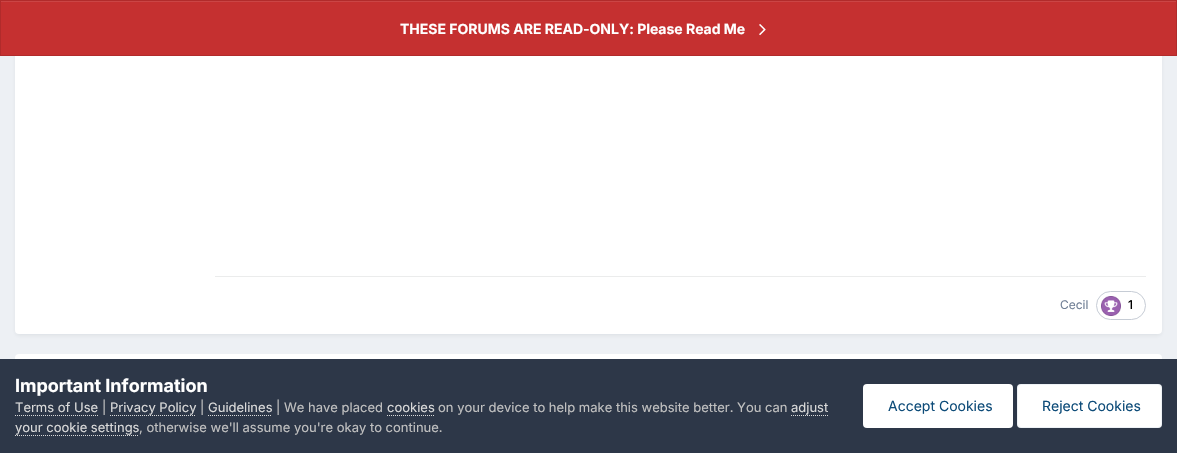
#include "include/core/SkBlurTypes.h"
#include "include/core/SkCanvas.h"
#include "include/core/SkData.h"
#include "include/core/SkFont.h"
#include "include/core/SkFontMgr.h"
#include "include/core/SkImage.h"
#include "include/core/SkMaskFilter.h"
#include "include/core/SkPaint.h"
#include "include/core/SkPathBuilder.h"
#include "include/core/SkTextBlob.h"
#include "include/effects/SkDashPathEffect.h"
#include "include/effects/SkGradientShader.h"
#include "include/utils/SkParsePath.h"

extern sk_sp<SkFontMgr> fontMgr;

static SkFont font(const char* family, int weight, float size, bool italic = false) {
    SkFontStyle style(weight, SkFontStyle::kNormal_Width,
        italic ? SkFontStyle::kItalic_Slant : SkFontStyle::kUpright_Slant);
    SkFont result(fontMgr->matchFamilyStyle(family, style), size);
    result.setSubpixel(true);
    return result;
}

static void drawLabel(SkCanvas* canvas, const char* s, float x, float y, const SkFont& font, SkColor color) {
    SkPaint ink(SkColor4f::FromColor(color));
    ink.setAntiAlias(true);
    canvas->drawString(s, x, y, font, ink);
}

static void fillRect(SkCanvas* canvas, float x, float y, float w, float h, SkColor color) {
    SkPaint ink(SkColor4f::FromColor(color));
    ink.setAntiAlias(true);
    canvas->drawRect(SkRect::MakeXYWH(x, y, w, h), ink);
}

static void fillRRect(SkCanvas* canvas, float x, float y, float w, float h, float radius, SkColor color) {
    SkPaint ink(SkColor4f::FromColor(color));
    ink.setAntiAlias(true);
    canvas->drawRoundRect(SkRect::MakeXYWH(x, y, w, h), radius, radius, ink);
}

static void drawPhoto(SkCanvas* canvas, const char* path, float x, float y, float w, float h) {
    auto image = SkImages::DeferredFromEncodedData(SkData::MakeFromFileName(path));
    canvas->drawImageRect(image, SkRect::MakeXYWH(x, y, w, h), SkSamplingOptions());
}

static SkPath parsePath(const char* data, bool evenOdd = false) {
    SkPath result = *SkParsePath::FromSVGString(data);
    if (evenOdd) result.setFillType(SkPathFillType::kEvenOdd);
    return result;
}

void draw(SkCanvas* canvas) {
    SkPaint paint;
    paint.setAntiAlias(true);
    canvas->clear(0xFFEDF0F4);
    paint.setColor(0x1A2D3748);
    paint.setMaskFilter(SkMaskFilter::MakeBlur(kNormal_SkBlurStyle, 2));
    canvas->drawRoundRect(SkRect::MakeXYWH(16, -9, 1145, 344), 3, 3, paint);
    paint.setMaskFilter(nullptr);
    fillRRect(canvas, 15, -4, 1147, 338, 4, 0xFFFFFFFF);
    fillRect(canvas, 1, 2, 1175, 53, 0xFFC53030);
    fillRect(canvas, 1, 1, 1175, 1, 0xFFCB4545);
    paint.setStroke(true);
    paint.setStrokeWidth(1);
    paint.setColor(0xFFB12B2B);
    canvas->drawRect(SkRect::MakeXYWH(0.5f, 0.5f, 1176, 55), paint);
    SkFont font1 = font("Inter", 700, 14);
    drawLabel(canvas, "THESE FORUMS ARE READ-ONLY: Please Read Me", 400, 34, font1, 0xFFFFFFFF);
    drawPhoto(canvas, "assets/img1.png", 759, 24, 7, 12);
    fillRect(canvas, 215, 276, 931, 1, 0xFFEBECEC);
    SkFont font2 = font("Inter", 400, 12);
    drawLabel(canvas, "Cecil", 1060, 309, font2, 0xFF718096);
    paint.setColor(0xFFC6CCD5);
    canvas->drawRoundRect(SkRect::MakeXYWH(1096.5f, 291.5f, 49, 28), 14, 14, paint);
    drawPhoto(canvas, "assets/img2.png", 1101, 296, 20, 20);
    SkFont font3 = font("Inter", 500, 12);
    drawLabel(canvas, "1", 1128, 309, font3, 0xFF000000);
    fillRRect(canvas, 15, 354, 1147, 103, 4, 0xFFFFFFFF);
    fillRect(canvas, 0, 359, 1177, 94, 0xFF2D3748);
    SkFont font4 = font("Inter", 700, 18);
    drawLabel(canvas, "Important Information", 15, 392, font4, 0xFFFFFFFF);
    SkFont font5 = font("Inter", 400, 13);
    drawLabel(canvas, "Terms of Use", 15, 412, font5, 0xFFDADADA);
    paint.setColor(0xFFDADADA);
    paint.setPathEffect(SkDashPathEffect::Make({{1, 1}}, 0));
    canvas->drawPath(parsePath("M15 415.5H98"), paint);
    paint.setPathEffect(nullptr);
    drawLabel(canvas, "|", 102, 412, font5, 0xFFC0C0C0);
    drawLabel(canvas, "Privacy Policy", 110, 412, font5, 0xFFDADADA);
    paint.setPathEffect(SkDashPathEffect::Make({{1, 1}}, 0));
    canvas->drawPath(parsePath("M110 415.5H196"), paint);
    paint.setPathEffect(nullptr);
    drawLabel(canvas, "|", 200, 412, font5, 0xFFC0C0C0);
    drawLabel(canvas, "Guidelines", 208, 412, font5, 0xFFDADADA);
    paint.setPathEffect(SkDashPathEffect::Make({{1, 1}}, 0));
    canvas->drawPath(parsePath("M208 415.5H272"), paint);
    paint.setPathEffect(nullptr);
    drawLabel(canvas, "| We have placed", 276, 412, font5, 0xFFC0C0C0);
    drawLabel(canvas, "cookies", 387, 412, font5, 0xFFDADADA);
    paint.setPathEffect(SkDashPathEffect::Make({{1, 1}}, 0));
    canvas->drawPath(parsePath("M387 415.5H434"), paint);
    paint.setPathEffect(nullptr);
    drawLabel(canvas, "on your device to help make this website better. You can", 438, 412, font5, 0xFFC0C0C0);
    drawLabel(canvas, "adjust", 791, 412, font5, 0xFFDADADA);
    paint.setPathEffect(SkDashPathEffect::Make({{1, 1}}, 0));
    canvas->drawPath(parsePath("M791 415.5H828"), paint);
    paint.setPathEffect(nullptr);
    drawLabel(canvas, "your cookie settings", 15, 432, font5, 0xFFDADADA);
    paint.setPathEffect(SkDashPathEffect::Make({{1, 1}}, 0));
    canvas->drawPath(parsePath("M15 435.5H139"), paint);
    paint.setPathEffect(nullptr);
    drawLabel(canvas, ", otherwise we'll assume you're okay to continue.", 139, 432, font5, 0xFFC0C0C0);
    fillRRect(canvas, 863, 384, 150, 44, 4, 0xFFFFFFFF);
    SkFont font6 = font("Inter", 400, 14);
    drawLabel(canvas, "Accept Cookies", 888, 411, font6, 0xFF0E4C79);
    fillRRect(canvas, 1017, 384, 145, 44, 4, 0xFFFFFFFF);
    paint.setColor(0x120E4C79);
    canvas->drawRoundRect(SkRect::MakeXYWH(1017.5f, 384.5f, 144, 43), 3.5f, 3.5f, paint);
    drawLabel(canvas, "Reject Cookies", 1042, 411, font6, 0xFF0E4C79);
}
